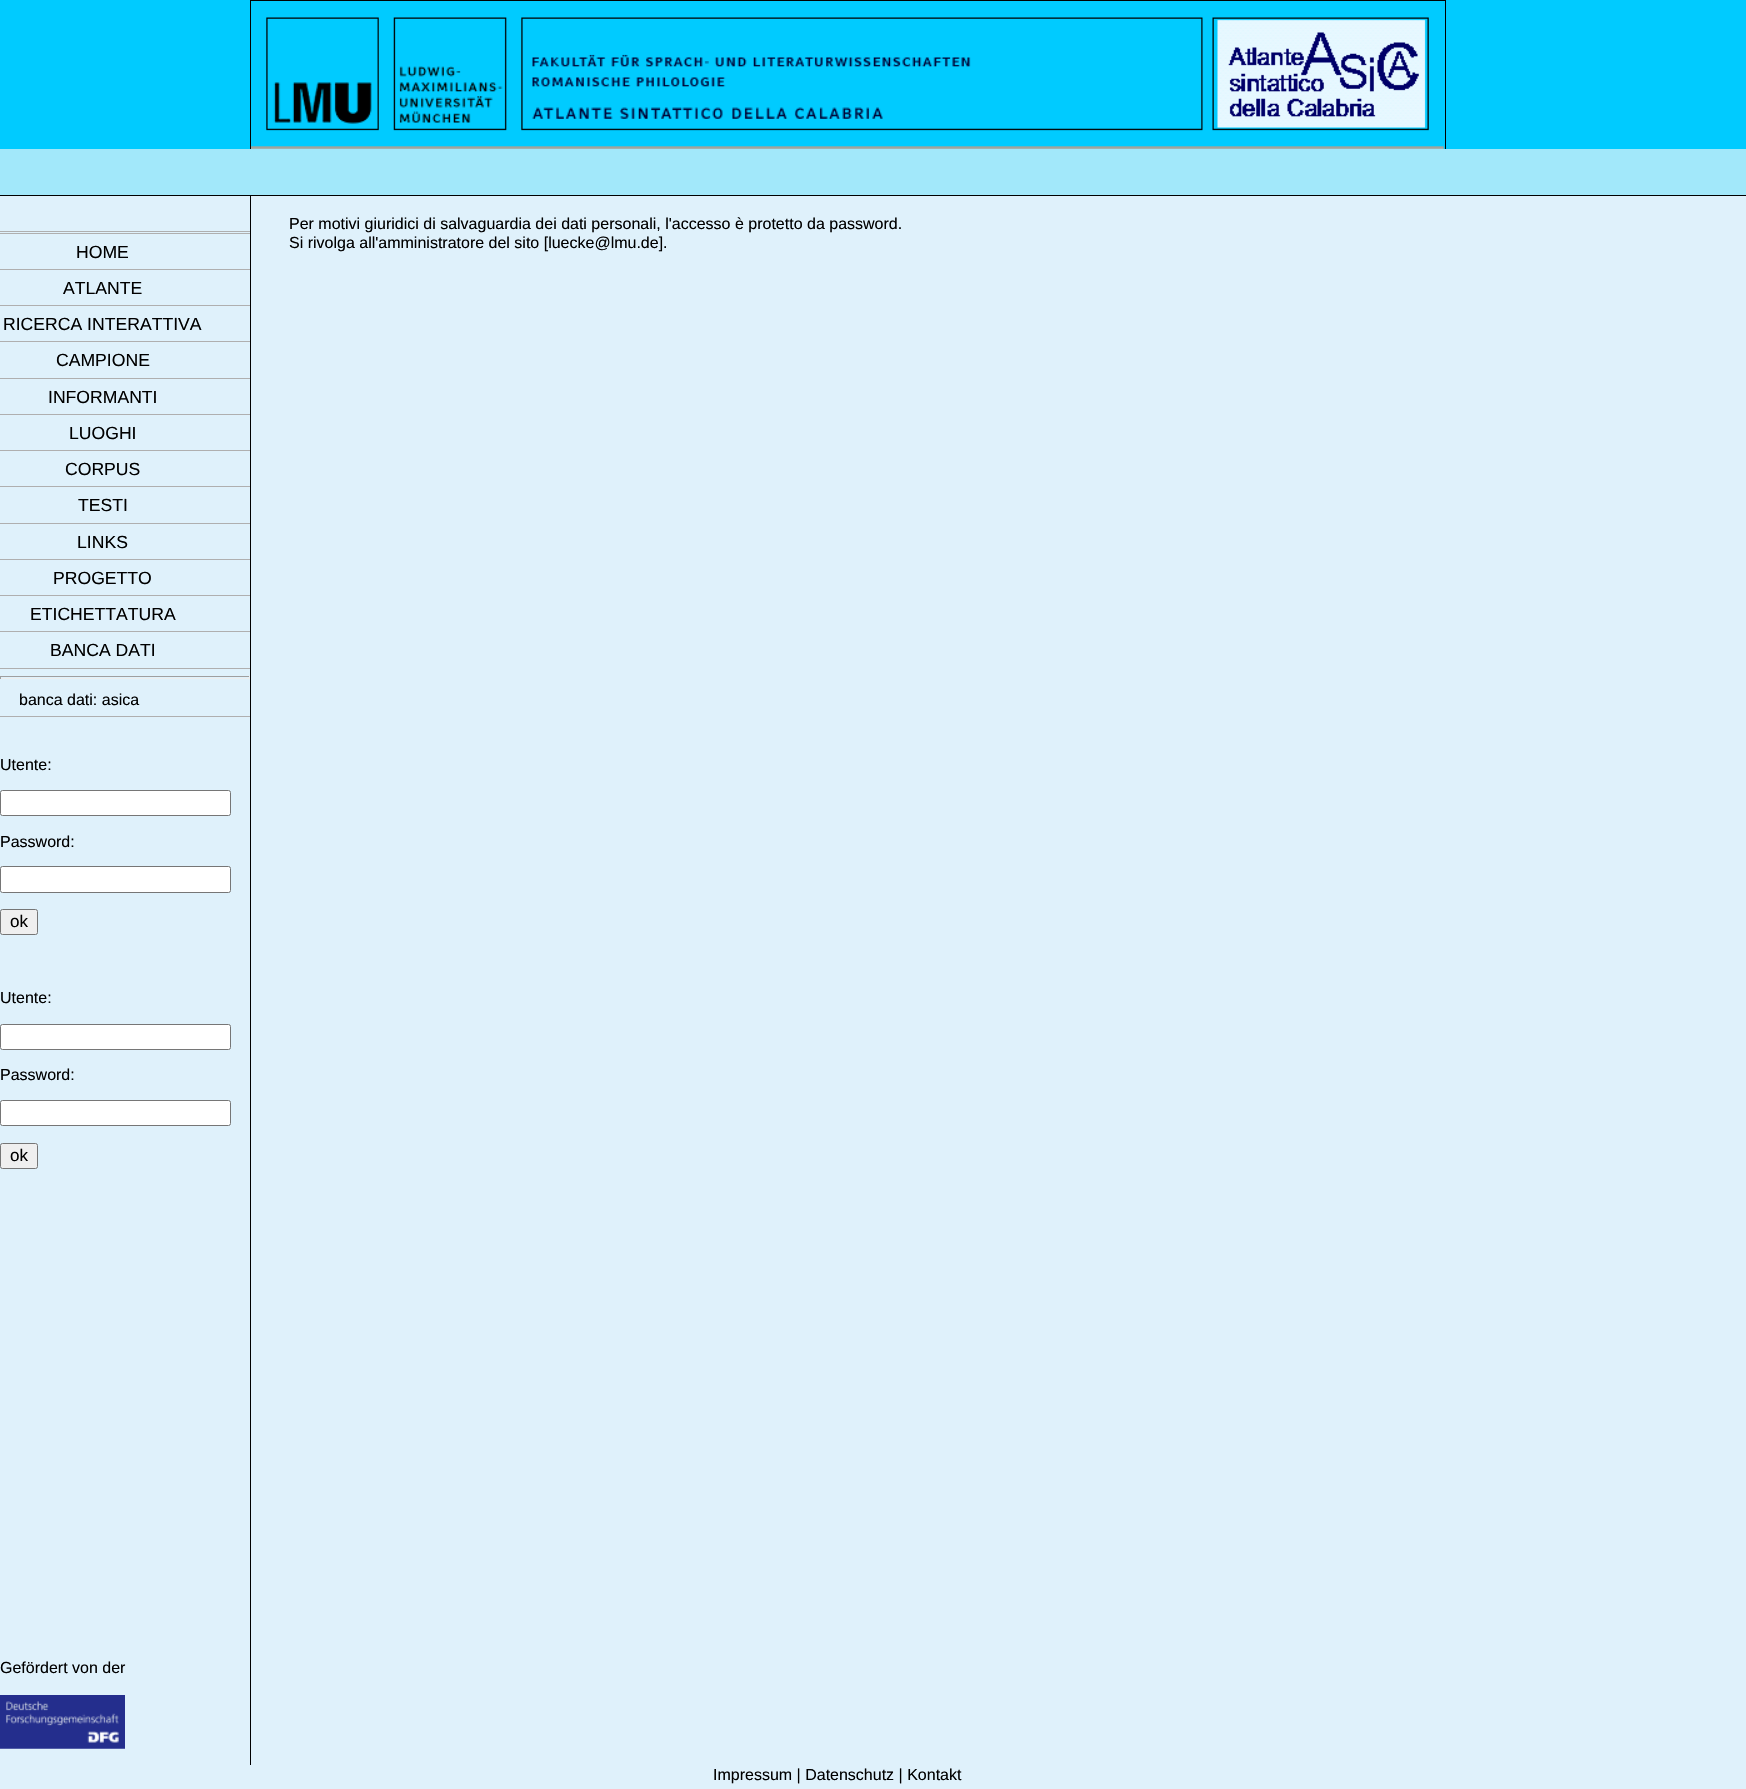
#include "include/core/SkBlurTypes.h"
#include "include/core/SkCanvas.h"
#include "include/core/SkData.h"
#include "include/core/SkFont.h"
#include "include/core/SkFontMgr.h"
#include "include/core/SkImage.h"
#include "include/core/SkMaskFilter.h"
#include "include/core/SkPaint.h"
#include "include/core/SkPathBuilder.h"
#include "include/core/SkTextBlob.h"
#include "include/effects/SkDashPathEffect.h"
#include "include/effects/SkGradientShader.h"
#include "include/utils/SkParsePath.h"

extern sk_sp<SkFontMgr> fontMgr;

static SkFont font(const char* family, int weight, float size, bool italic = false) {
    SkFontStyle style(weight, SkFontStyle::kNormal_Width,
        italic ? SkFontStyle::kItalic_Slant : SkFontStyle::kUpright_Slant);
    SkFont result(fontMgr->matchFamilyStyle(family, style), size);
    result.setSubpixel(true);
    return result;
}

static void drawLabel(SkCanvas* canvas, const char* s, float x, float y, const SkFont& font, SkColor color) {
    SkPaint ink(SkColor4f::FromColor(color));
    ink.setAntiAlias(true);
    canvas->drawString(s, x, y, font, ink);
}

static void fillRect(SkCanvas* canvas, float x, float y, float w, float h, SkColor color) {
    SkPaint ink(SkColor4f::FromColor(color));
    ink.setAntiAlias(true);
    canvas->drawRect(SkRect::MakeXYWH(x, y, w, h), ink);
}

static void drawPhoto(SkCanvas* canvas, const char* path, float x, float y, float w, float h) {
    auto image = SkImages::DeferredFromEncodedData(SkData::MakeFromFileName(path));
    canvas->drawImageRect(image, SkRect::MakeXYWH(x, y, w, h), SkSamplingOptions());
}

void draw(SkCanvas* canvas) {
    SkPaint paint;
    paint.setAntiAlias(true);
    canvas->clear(0xFFDFF1FB);
    fillRect(canvas, 0, 0, 1746, 149, 0xFF00CBFF);
    paint.setStroke(true);
    paint.setStrokeWidth(1);
    paint.setColor(0xFF000000);
    canvas->drawRect(SkRect::MakeXYWH(250.5f, 0.5f, 1195, 148), paint);
    drawPhoto(canvas, "assets/img1.png", 251, 17, 1194, 132);
    fillRect(canvas, 0, 149, 1746, 46, 0xFFA2E8FA);
    fillRect(canvas, 250, 195, 1, 1570, 0xFF000000);
    fillRect(canvas, 0, 195, 1746, 1, 0xFF000000);
    SkFont font1 = font("Liberation Sans", 400, 16);
    drawLabel(canvas, "Per motivi giuridici di salvaguardia dei dati personali, l'accesso è protetto da password.", 289, 229, font1, 0xFF000000);
    drawLabel(canvas, "Si rivolga all'amministratore del sito [luecke@lmu.de].", 289, 248, font1, 0xFF000000);
    fillRect(canvas, 0, 231, 250, 1, 0xFFAFAFAF);
    fillRect(canvas, 0, 233, 250, 1, 0xFFAFAFAF);
    fillRect(canvas, 0, 269, 250, 1, 0xFFAFAFAF);
    SkFont font2 = font("Liberation Sans", 400, 17.6f);
    drawLabel(canvas, "HOME", 76, 258, font2, 0xFF000000);
    fillRect(canvas, 0, 305, 250, 1, 0xFFAFAFAF);
    drawLabel(canvas, "ATLANTE", 63, 294, font2, 0xFF000000);
    fillRect(canvas, 0, 341, 250, 1, 0xFFAFAFAF);
    drawLabel(canvas, "RICERCA INTERATTIVA", 3, 330, font2, 0xFF000000);
    fillRect(canvas, 0, 378, 250, 1, 0xFFAFAFAF);
    drawLabel(canvas, "CAMPIONE", 56, 366, font2, 0xFF000000);
    fillRect(canvas, 0, 414, 250, 1, 0xFFAFAFAF);
    drawLabel(canvas, "INFORMANTI", 48, 403, font2, 0xFF000000);
    fillRect(canvas, 0, 450, 250, 1, 0xFFAFAFAF);
    drawLabel(canvas, "LUOGHI", 69, 439, font2, 0xFF000000);
    fillRect(canvas, 0, 486, 250, 1, 0xFFAFAFAF);
    drawLabel(canvas, "CORPUS", 65, 475, font2, 0xFF000000);
    fillRect(canvas, 0, 523, 250, 1, 0xFFAFAFAF);
    drawLabel(canvas, "TESTI", 78, 511, font2, 0xFF000000);
    fillRect(canvas, 0, 559, 250, 1, 0xFFAFAFAF);
    drawLabel(canvas, "LINKS", 77, 548, font2, 0xFF000000);
    fillRect(canvas, 0, 595, 250, 1, 0xFFAFAFAF);
    drawLabel(canvas, "PROGETTO", 53, 584, font2, 0xFF000000);
    fillRect(canvas, 0, 631, 250, 1, 0xFFAFAFAF);
    drawLabel(canvas, "ETICHETTATURA", 30, 620, font2, 0xFF000000);
    fillRect(canvas, 0, 668, 250, 1, 0xFFAFAFAF);
    drawLabel(canvas, "BANCA DATI", 50, 656, font2, 0xFF000000);
    fillRect(canvas, 0, 676, 250, 1, 0xFF9F9F9F);
    fillRect(canvas, 249, 676, 1, 3, 0xFFEEEEEE);
    fillRect(canvas, 0, 678, 250, 1, 0xFFEEEEEE);
    fillRect(canvas, 0, 676, 1, 3, 0xFF9F9F9F);
    fillRect(canvas, 0, 716, 250, 1, 0xFFAFAFAF);
    drawLabel(canvas, "banca dati: asica", 19, 705, font1, 0xFF000000);
    drawLabel(canvas, "Utente:", 0, 770, font1, 0xFF000000);
    paint.setStroke(false);
    paint.setColor(0xFFFFFFFF);
    canvas->drawRoundRect(SkRect::MakeXYWH(0.5f, 790.5f, 230, 25), 2, 2, paint);
    paint.setStroke(true);
    paint.setColor(0xFF767676);
    canvas->drawRoundRect(SkRect::MakeXYWH(0.5f, 790.5f, 230, 25), 2, 2, paint);
    drawLabel(canvas, "Password:", 0, 847, font1, 0xFF000000);
    paint.setStroke(false);
    paint.setColor(0xFFFFFFFF);
    canvas->drawRoundRect(SkRect::MakeXYWH(0.5f, 866.5f, 230, 26), 2, 2, paint);
    paint.setStroke(true);
    paint.setColor(0xFF767676);
    canvas->drawRoundRect(SkRect::MakeXYWH(0.5f, 866.5f, 230, 26), 2, 2, paint);
    paint.setStroke(false);
    paint.setColor(0xFFEFEFEF);
    canvas->drawRoundRect(SkRect::MakeXYWH(0.5f, 909.5f, 37, 25), 2, 2, paint);
    paint.setStroke(true);
    paint.setColor(0xFF767676);
    canvas->drawRoundRect(SkRect::MakeXYWH(0.5f, 909.5f, 37, 25), 2, 2, paint);
    SkFont font3 = font("Liberation Sans", 400, 17);
    drawLabel(canvas, "ok", 10, 927, font3, 0xFF000000);
    drawLabel(canvas, "Utente:", 0, 1003, font1, 0xFF000000);
    paint.setStroke(false);
    paint.setColor(0xFFFFFFFF);
    canvas->drawRoundRect(SkRect::MakeXYWH(0.5f, 1024.5f, 230, 25), 2, 2, paint);
    paint.setStroke(true);
    paint.setColor(0xFF767676);
    canvas->drawRoundRect(SkRect::MakeXYWH(0.5f, 1024.5f, 230, 25), 2, 2, paint);
    drawLabel(canvas, "Password:", 0, 1080, font1, 0xFF000000);
    paint.setStroke(false);
    paint.setColor(0xFFFFFFFF);
    canvas->drawRoundRect(SkRect::MakeXYWH(0.5f, 1100.5f, 230, 25), 2, 2, paint);
    paint.setStroke(true);
    paint.setColor(0xFF767676);
    canvas->drawRoundRect(SkRect::MakeXYWH(0.5f, 1100.5f, 230, 25), 2, 2, paint);
    paint.setStroke(false);
    paint.setColor(0xFFEFEFEF);
    canvas->drawRoundRect(SkRect::MakeXYWH(0.5f, 1143.5f, 37, 25), 2, 2, paint);
    paint.setStroke(true);
    paint.setColor(0xFF767676);
    canvas->drawRoundRect(SkRect::MakeXYWH(0.5f, 1143.5f, 37, 25), 2, 2, paint);
    drawLabel(canvas, "ok", 10, 1161, font3, 0xFF000000);
    drawLabel(canvas, "Gefördert von der", 0, 1673, font1, 0xFF000000);
    drawPhoto(canvas, "assets/img2.png", 0, 1695, 125, 54);
    drawLabel(canvas, "Impressum | Datenschutz | Kontakt", 713, 1780, font1, 0xFF000000);
}
